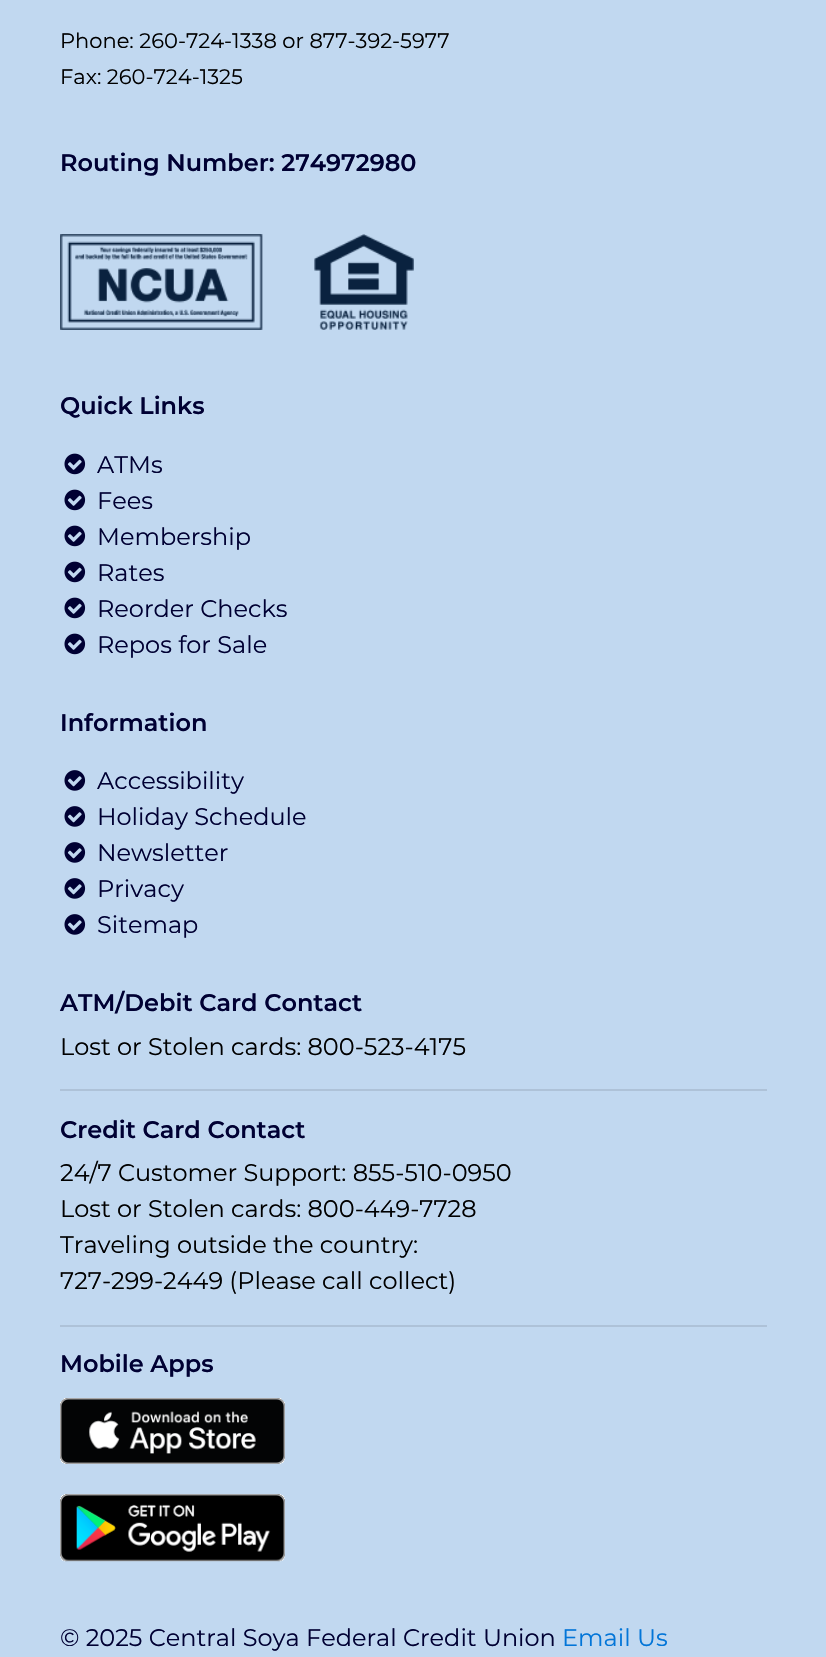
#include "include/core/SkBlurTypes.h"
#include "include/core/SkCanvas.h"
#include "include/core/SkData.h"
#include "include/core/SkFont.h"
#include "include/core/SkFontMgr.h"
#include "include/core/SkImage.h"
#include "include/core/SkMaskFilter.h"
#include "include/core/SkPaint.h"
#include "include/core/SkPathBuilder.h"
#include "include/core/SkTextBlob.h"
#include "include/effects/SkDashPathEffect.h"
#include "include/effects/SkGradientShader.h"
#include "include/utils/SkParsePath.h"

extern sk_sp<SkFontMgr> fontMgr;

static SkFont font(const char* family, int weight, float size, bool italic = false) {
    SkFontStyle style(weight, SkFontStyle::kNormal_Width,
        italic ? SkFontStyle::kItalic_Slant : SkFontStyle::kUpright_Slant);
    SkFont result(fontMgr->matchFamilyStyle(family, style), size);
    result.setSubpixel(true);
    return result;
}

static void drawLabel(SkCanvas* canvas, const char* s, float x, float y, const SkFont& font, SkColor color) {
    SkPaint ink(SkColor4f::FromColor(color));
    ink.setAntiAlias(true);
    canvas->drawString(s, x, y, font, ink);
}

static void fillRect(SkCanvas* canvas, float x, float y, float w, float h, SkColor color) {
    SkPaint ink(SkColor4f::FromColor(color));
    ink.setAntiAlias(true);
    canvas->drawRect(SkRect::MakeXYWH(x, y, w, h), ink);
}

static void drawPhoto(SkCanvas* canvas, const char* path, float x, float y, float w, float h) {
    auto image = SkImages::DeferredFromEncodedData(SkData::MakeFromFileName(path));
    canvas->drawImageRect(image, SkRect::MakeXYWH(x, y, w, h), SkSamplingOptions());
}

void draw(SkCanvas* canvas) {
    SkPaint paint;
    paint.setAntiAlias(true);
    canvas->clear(0xFFC1D8F0);
    SkFont font1 = font("Montserrat", 400, 21);
    drawLabel(canvas, "Phone: 260-724-1338 or 877-392-5977", 60, 48, font1, 0xFF000000);
    drawLabel(canvas, "Fax: 260-724-1325", 60, 84, font1, 0xFF000000);
    SkFont font2 = font("Montserrat", 600, 24);
    drawLabel(canvas, "Routing Number: 274972980", 60, 171, font2, 0xFF000033);
    drawPhoto(canvas, "assets/img1.png", 60, 234, 354, 96);
    drawLabel(canvas, "Quick Links", 60, 414, font2, 0xFF000033);
    drawPhoto(canvas, "assets/img2.png", 64, 453, 22, 22);
    SkFont font3 = font("Montserrat", 400, 24);
    drawLabel(canvas, "ATMs", 97, 473, font3, 0xFF000033);
    drawPhoto(canvas, "assets/img2.png", 64, 489, 22, 22);
    drawLabel(canvas, "Fees", 97, 509, font3, 0xFF000033);
    drawPhoto(canvas, "assets/img2.png", 64, 525, 22, 22);
    drawLabel(canvas, "Membership", 97, 545, font3, 0xFF000033);
    drawPhoto(canvas, "assets/img2.png", 64, 561, 22, 22);
    drawLabel(canvas, "Rates", 97, 581, font3, 0xFF000033);
    drawPhoto(canvas, "assets/img2.png", 64, 597, 22, 22);
    drawLabel(canvas, "Reorder Checks", 97, 617, font3, 0xFF000033);
    drawPhoto(canvas, "assets/img2.png", 64, 633, 22, 22);
    drawLabel(canvas, "Repos for Sale", 97, 653, font3, 0xFF000033);
    drawLabel(canvas, "Information", 60, 731, font2, 0xFF000033);
    drawPhoto(canvas, "assets/img3.png", 64, 770, 22, 21);
    drawLabel(canvas, "Accessibility", 97, 789, font3, 0xFF000033);
    drawPhoto(canvas, "assets/img3.png", 64, 806, 22, 21);
    drawLabel(canvas, "Holiday Schedule", 97, 825, font3, 0xFF000033);
    drawPhoto(canvas, "assets/img3.png", 64, 842, 22, 21);
    drawLabel(canvas, "Newsletter", 97, 861, font3, 0xFF000033);
    drawPhoto(canvas, "assets/img3.png", 64, 878, 22, 21);
    drawLabel(canvas, "Privacy", 97, 897, font3, 0xFF000033);
    drawPhoto(canvas, "assets/img3.png", 64, 914, 22, 21);
    drawLabel(canvas, "Sitemap", 97, 933, font3, 0xFF000033);
    drawLabel(canvas, "ATM/Debit Card Contact", 60, 1011, font2, 0xFF000033);
    drawLabel(canvas, "Lost or Stolen cards: 800-523-4175", 60, 1055, font3, 0xFF000000);
    fillRect(canvas, 60, 1089, 707, 2, 0xFFAEC2D8);
    drawLabel(canvas, "Credit Card Contact", 60, 1138, font2, 0xFF000033);
    drawLabel(canvas, "24/7 Customer Support: 855-510-0950", 60, 1181, font3, 0xFF000000);
    drawLabel(canvas, "Lost or Stolen cards: 800-449-7728", 60, 1217, font3, 0xFF000000);
    drawLabel(canvas, "Traveling outside the country:", 60, 1253, font3, 0xFF000000);
    drawLabel(canvas, "727-299-2449 (Please call collect)", 60, 1289, font3, 0xFF000000);
    fillRect(canvas, 60, 1325, 707, 2, 0xFFAEC2D8);
    drawLabel(canvas, "Mobile Apps", 60, 1372, font2, 0xFF000033);
    drawPhoto(canvas, "assets/img4.png", 60, 1398, 225, 66);
    drawPhoto(canvas, "assets/img5.png", 60, 1494, 225, 68);
    drawLabel(canvas, "© 2025 Central Soya Federal Credit Union", 60, 1646, font3, 0xFF000033);
    drawLabel(canvas, "Email Us", 562, 1646, font3, 0xFF0275D8);
}
